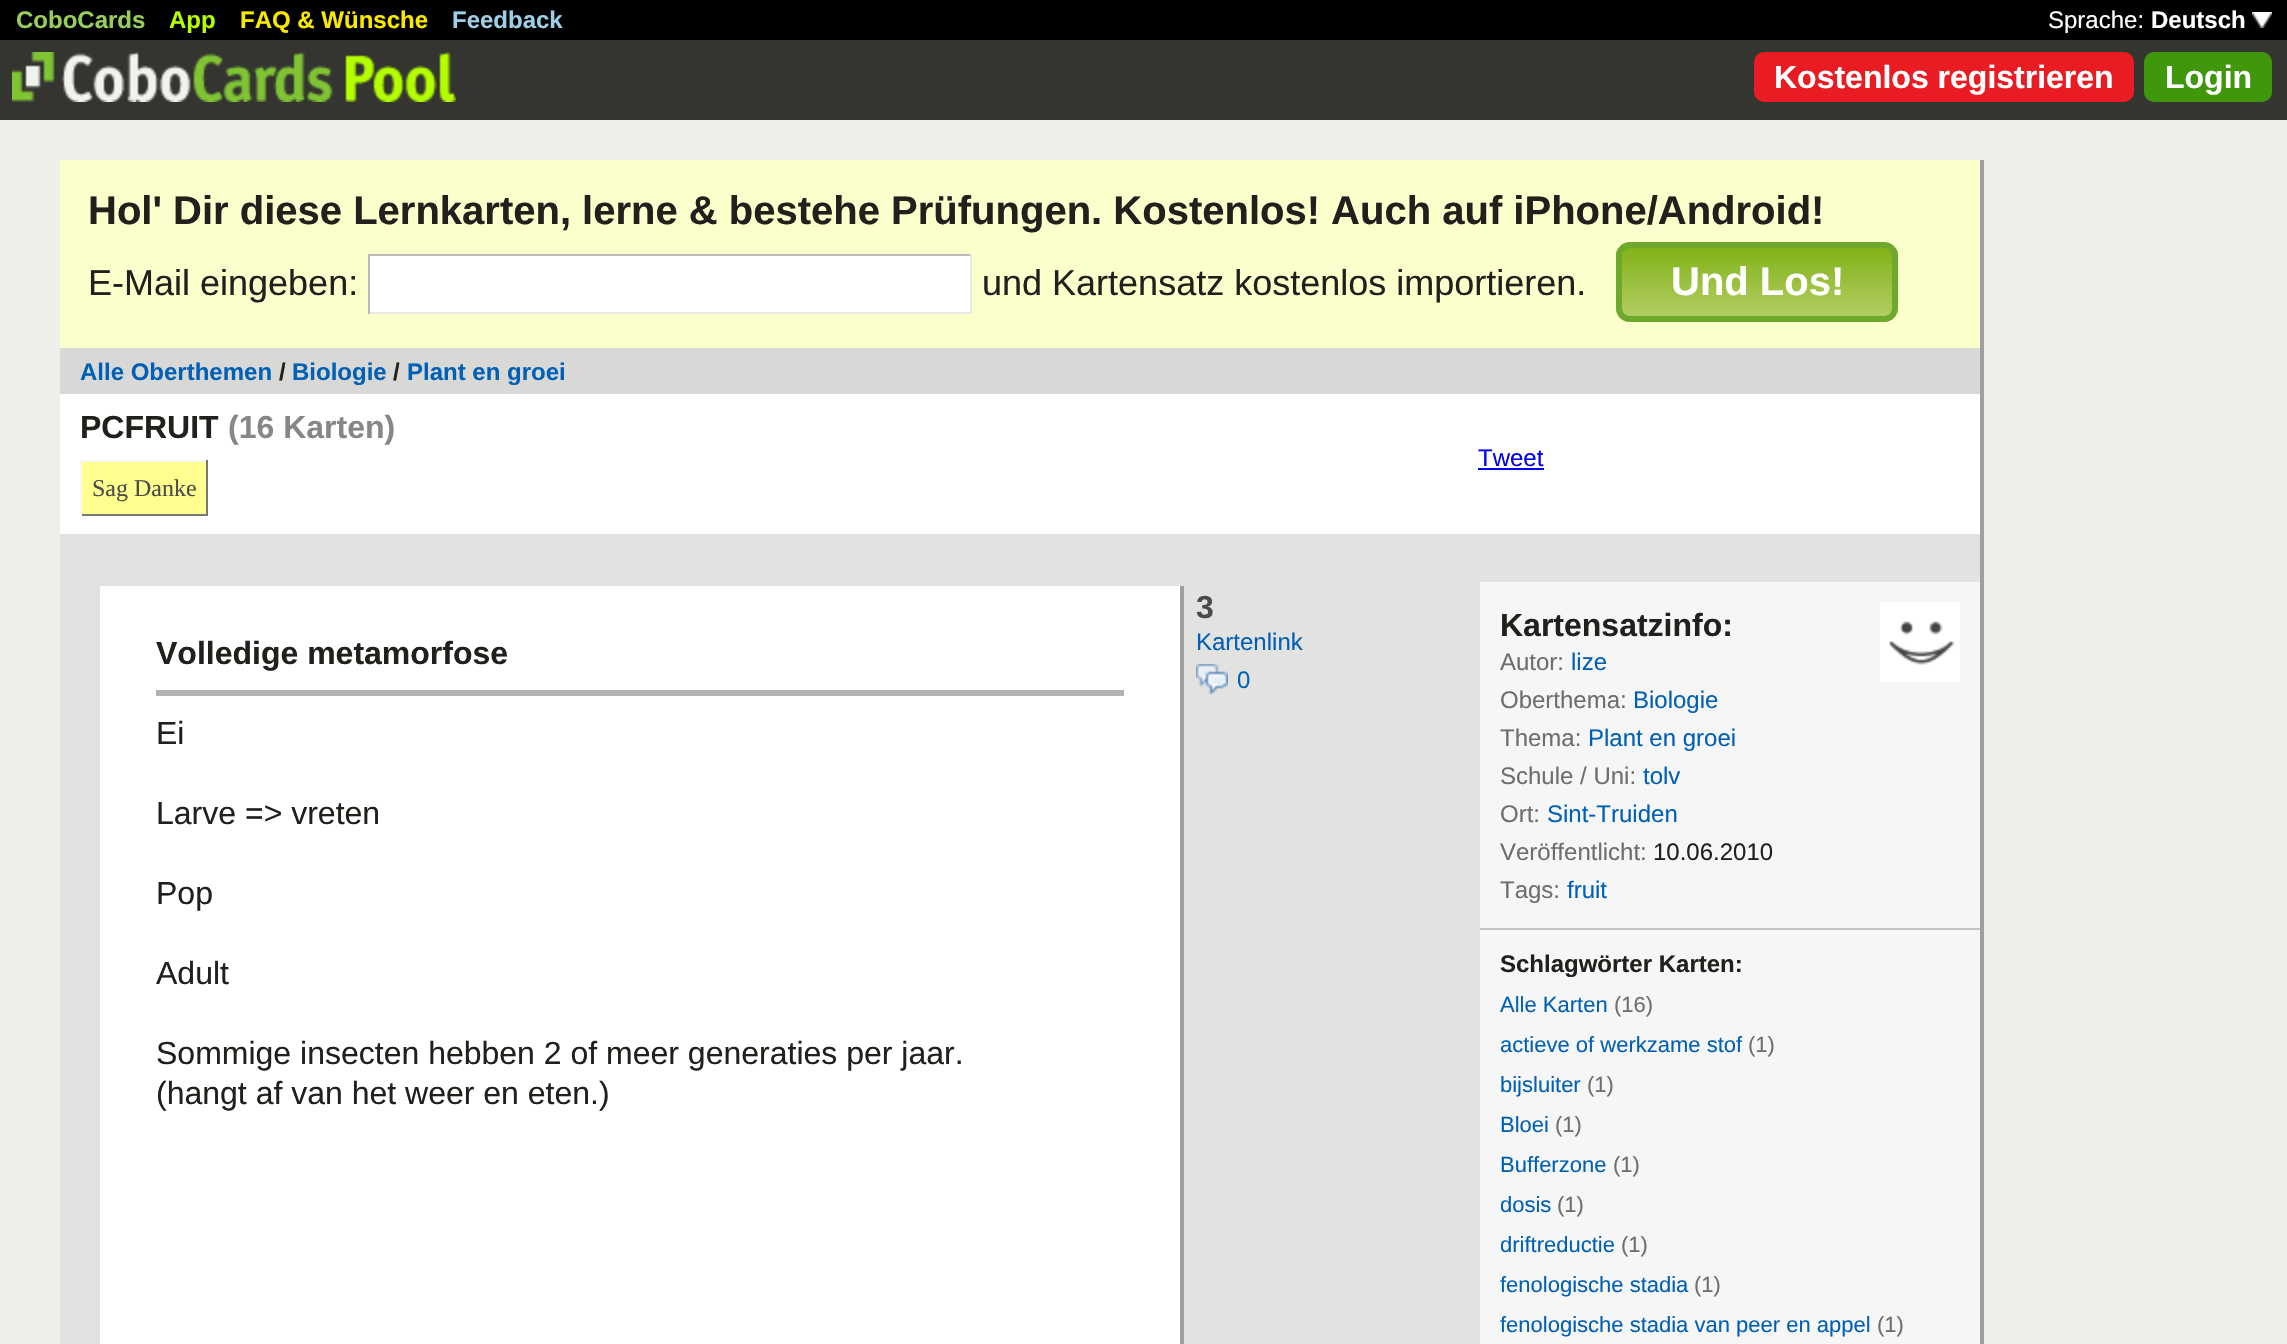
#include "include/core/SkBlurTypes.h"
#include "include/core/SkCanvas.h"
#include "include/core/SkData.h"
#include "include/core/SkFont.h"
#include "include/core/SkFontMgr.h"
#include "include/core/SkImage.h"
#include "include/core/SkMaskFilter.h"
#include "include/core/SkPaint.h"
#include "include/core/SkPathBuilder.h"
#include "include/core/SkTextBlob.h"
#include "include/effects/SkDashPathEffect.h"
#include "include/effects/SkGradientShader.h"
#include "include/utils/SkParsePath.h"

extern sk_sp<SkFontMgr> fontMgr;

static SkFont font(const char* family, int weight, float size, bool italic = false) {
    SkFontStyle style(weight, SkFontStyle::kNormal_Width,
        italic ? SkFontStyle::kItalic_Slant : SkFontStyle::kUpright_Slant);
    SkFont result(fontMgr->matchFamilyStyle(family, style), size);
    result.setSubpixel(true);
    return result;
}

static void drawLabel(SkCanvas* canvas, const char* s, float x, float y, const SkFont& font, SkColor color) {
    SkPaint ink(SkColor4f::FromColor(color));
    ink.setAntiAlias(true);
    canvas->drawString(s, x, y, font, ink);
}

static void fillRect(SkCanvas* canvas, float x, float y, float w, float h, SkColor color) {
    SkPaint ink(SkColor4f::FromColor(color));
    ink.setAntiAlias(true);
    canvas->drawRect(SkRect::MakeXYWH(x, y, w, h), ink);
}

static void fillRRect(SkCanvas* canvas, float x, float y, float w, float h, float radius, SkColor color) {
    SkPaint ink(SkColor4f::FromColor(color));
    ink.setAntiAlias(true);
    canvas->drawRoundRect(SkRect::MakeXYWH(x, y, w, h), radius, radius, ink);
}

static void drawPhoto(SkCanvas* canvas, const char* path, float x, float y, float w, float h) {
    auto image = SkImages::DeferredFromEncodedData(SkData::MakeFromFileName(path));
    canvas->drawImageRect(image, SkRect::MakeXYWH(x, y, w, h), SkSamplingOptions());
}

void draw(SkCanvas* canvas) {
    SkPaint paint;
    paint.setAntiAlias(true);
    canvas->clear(0xFFEEEFEB);
    fillRect(canvas, 0, 40, 2287, 80, 0xFF343530);
    fillRect(canvas, 0, 0, 2287, 40, 0xFF000000);
    SkFont font1 = font("Liberation Sans", 700, 24);
    drawLabel(canvas, "CoboCards", 16, 28, font1, 0xFF97CF58);
    drawLabel(canvas, "App", 169, 28, font1, 0xFFB4FF00);
    drawLabel(canvas, "FAQ & Wünsche", 240, 28, font1, 0xFFF9E800);
    drawLabel(canvas, "Feedback", 452, 28, font1, 0xFF9FCFE7);
    SkFont font2 = font("Liberation Sans", 400, 24);
    drawLabel(canvas, "Sprache:", 2048, 28, font2, 0xFFFFFFFF);
    drawLabel(canvas, "Deutsch", 2151, 28, font1, 0xFFFFFFFF);
    drawPhoto(canvas, "assets/img1.png", 2252, 12, 20, 16);
    drawPhoto(canvas, "assets/img2.png", 12, 52, 444, 50);
    fillRRect(canvas, 1754, 52, 380, 50, 10, 0xFFE91C24);
    SkFont font3 = font("Liberation Sans", 700, 32);
    drawLabel(canvas, "Kostenlos registrieren", 1774, 88, font3, 0xFFFFFFFF);
    fillRRect(canvas, 2144, 52, 128, 50, 10, 0xFF40970B);
    drawLabel(canvas, "Login", 2165, 88, font3, 0xFFFFFFFF);
    fillRect(canvas, 60, 534, 1920, 810, 0xFFE2E3E0);
    fillRect(canvas, 1980, 160, 4, 1184, 0xFF9F9F9F);
    fillRect(canvas, 60, 160, 1920, 188, 0xFFFBFFCC);
    SkFont font4 = font("Liberation Sans", 700, 40);
    drawLabel(canvas, "Hol' Dir diese Lernkarten, lerne & bestehe Prüfungen. Kostenlos! Auch auf iPhone/Android!", 88, 224, font4, 0xFF21201C);
    fillRect(canvas, 370, 256, 600, 56, 0xFFFFFFFF);
    fillRect(canvas, 368, 254, 604, 2, 0xFFBBBBBA);
    fillRect(canvas, 970, 254, 2, 60, 0xFFE8E9E7);
    fillRect(canvas, 368, 312, 604, 2, 0xFFE8E9E7);
    fillRect(canvas, 368, 254, 2, 60, 0xFFBBBBBA);
    drawPhoto(canvas, "assets/img3.png", 1616, 248, 282, 74);
    SkFont font5 = font("Liberation Sans", 400, 36);
    drawLabel(canvas, "E-Mail eingeben:", 88, 295, font5, 0xFF21201C);
    drawLabel(canvas, "und Kartensatz kostenlos importieren.", 982, 295, font5, 0xFF21201C);
    paint.setStroke(true);
    paint.setStrokeWidth(6);
    paint.setColor(0xFF6EA82D);
    canvas->drawRoundRect(SkRect::MakeXYWH(1619, 245, 276, 74), 11, 11, paint);
    drawLabel(canvas, "Und Los!", 1671, 295, font4, 0xFFFFFFFF);
    fillRect(canvas, 60, 348, 1920, 46, 0xFFD8D9D7);
    drawLabel(canvas, "Alle Oberthemen", 80, 380, font1, 0xFF0060B6);
    drawLabel(canvas, "/", 279, 380, font1, 0xFF21201C);
    drawLabel(canvas, "Biologie", 292, 380, font1, 0xFF0060B6);
    drawLabel(canvas, "/", 393, 380, font1, 0xFF21201C);
    drawLabel(canvas, "Plant en groei", 407, 380, font1, 0xFF0060B6);
    fillRect(canvas, 60, 394, 1920, 140, 0xFFFFFFFF);
    drawLabel(canvas, "PCFRUIT", 80, 438, font3, 0xFF21201C);
    drawLabel(canvas, "(16 Karten)", 228, 438, font3, 0xFF868886);
    drawLabel(canvas, "Tweet", 1478, 466, font2, 0xFF0000EE);
    fillRect(canvas, 1478, 468, 66, 2, 0xFF0000EE);
    fillRect(canvas, 82, 462, 124, 52, 0xFFFFFF90);
    fillRect(canvas, 80, 460, 128, 2, 0xFFF6F6F6);
    fillRect(canvas, 206, 460, 2, 56, 0xFF777876);
    fillRect(canvas, 80, 514, 128, 2, 0xFF777876);
    fillRect(canvas, 80, 460, 2, 56, 0xFFF6F6F6);
    SkFont font6 = font("Liberation Serif", 400, 24);
    drawLabel(canvas, "Sag Danke", 92, 496, font6, 0xFF4B4C49);
    fillRect(canvas, 100, 586, 1080, 758, 0xFFFFFFFF);
    fillRect(canvas, 1180, 586, 4, 758, 0xFF9F9F9F);
    drawLabel(canvas, "Volledige metamorfose", 156, 664, font3, 0xFF21201C);
    drawLabel(canvas, "3", 1196, 618, font3, 0xFF4B4C49);
    drawLabel(canvas, "Kartenlink", 1196, 650, font2, 0xFF0060B6);
    drawPhoto(canvas, "assets/img4.png", 1196, 664, 32, 31);
    drawLabel(canvas, "0", 1237, 688, font2, 0xFF0060B6);
    fillRect(canvas, 156, 690, 968, 6, 0xFFB3B3B3);
    SkFont font7 = font("Liberation Sans", 400, 32);
    drawLabel(canvas, "Ei", 156, 744, font7, 0xFF21201C);
    drawLabel(canvas, "Larve => vreten", 156, 824, font7, 0xFF21201C);
    drawLabel(canvas, "Pop", 156, 904, font7, 0xFF21201C);
    drawLabel(canvas, "Adult", 156, 984, font7, 0xFF21201C);
    drawLabel(canvas, "Sommige insecten hebben 2 of meer generaties per jaar.", 156, 1064, font7, 0xFF21201C);
    drawLabel(canvas, "(hangt af van het weer en eten.)", 156, 1104, font7, 0xFF21201C);
    fillRect(canvas, 1480, 582, 500, 762, 0xFFF6F6F6);
    drawLabel(canvas, "Kartensatzinfo:", 1500, 636, font3, 0xFF21201C);
    drawPhoto(canvas, "assets/img5.png", 1880, 602, 80, 80);
    drawLabel(canvas, "Autor:", 1500, 670, font2, 0xFF6D6F6C);
    drawLabel(canvas, "lize", 1571, 670, font2, 0xFF0060B6);
    drawLabel(canvas, "Oberthema:", 1500, 708, font2, 0xFF6D6F6C);
    drawLabel(canvas, "Biologie", 1633, 708, font2, 0xFF0060B6);
    drawLabel(canvas, "Thema:", 1500, 746, font2, 0xFF6D6F6C);
    drawLabel(canvas, "Plant en groei", 1588, 746, font2, 0xFF0060B6);
    drawLabel(canvas, "Schule / Uni:", 1500, 784, font2, 0xFF6D6F6C);
    drawLabel(canvas, "tolv", 1643, 784, font2, 0xFF0060B6);
    drawLabel(canvas, "Ort:", 1500, 822, font2, 0xFF6D6F6C);
    drawLabel(canvas, "Sint-Truiden", 1547, 822, font2, 0xFF0060B6);
    drawLabel(canvas, "Veröffentlicht:", 1500, 860, font2, 0xFF6D6F6C);
    drawLabel(canvas, "10.06.2010", 1653, 860, font2, 0xFF21201C);
    drawLabel(canvas, "Tags:", 1500, 898, font2, 0xFF6D6F6C);
    drawLabel(canvas, "fruit", 1567, 898, font2, 0xFF0060B6);
    fillRect(canvas, 1480, 928, 500, 2, 0xFFC2C4C3);
    drawLabel(canvas, "Schlagwörter Karten:", 1500, 972, font1, 0xFF21201C);
    SkFont font8 = font("Liberation Sans", 400, 22);
    drawLabel(canvas, "Alle Karten", 1500, 1012, font8, 0xFF0060B6);
    drawLabel(canvas, "(16)", 1614, 1012, font8, 0xFF6D6F6C);
    drawLabel(canvas, "actieve of werkzame stof", 1500, 1052, font8, 0xFF0060B6);
    drawLabel(canvas, "(1)", 1748, 1052, font8, 0xFF6D6F6C);
    drawLabel(canvas, "bijsluiter", 1500, 1092, font8, 0xFF0060B6);
    drawLabel(canvas, "(1)", 1587, 1092, font8, 0xFF6D6F6C);
    drawLabel(canvas, "Bloei", 1500, 1132, font8, 0xFF0060B6);
    drawLabel(canvas, "(1)", 1555, 1132, font8, 0xFF6D6F6C);
    drawLabel(canvas, "Bufferzone", 1500, 1172, font8, 0xFF0060B6);
    drawLabel(canvas, "(1)", 1613, 1172, font8, 0xFF6D6F6C);
    drawLabel(canvas, "dosis", 1500, 1212, font8, 0xFF0060B6);
    drawLabel(canvas, "(1)", 1557, 1212, font8, 0xFF6D6F6C);
    drawLabel(canvas, "driftreductie", 1500, 1252, font8, 0xFF0060B6);
    drawLabel(canvas, "(1)", 1621, 1252, font8, 0xFF6D6F6C);
    drawLabel(canvas, "fenologische stadia", 1500, 1292, font8, 0xFF0060B6);
    drawLabel(canvas, "(1)", 1694, 1292, font8, 0xFF6D6F6C);
    drawLabel(canvas, "fenologische stadia van peer en appel", 1500, 1332, font8, 0xFF0060B6);
    drawLabel(canvas, "(1)", 1877, 1332, font8, 0xFF6D6F6C);
}
